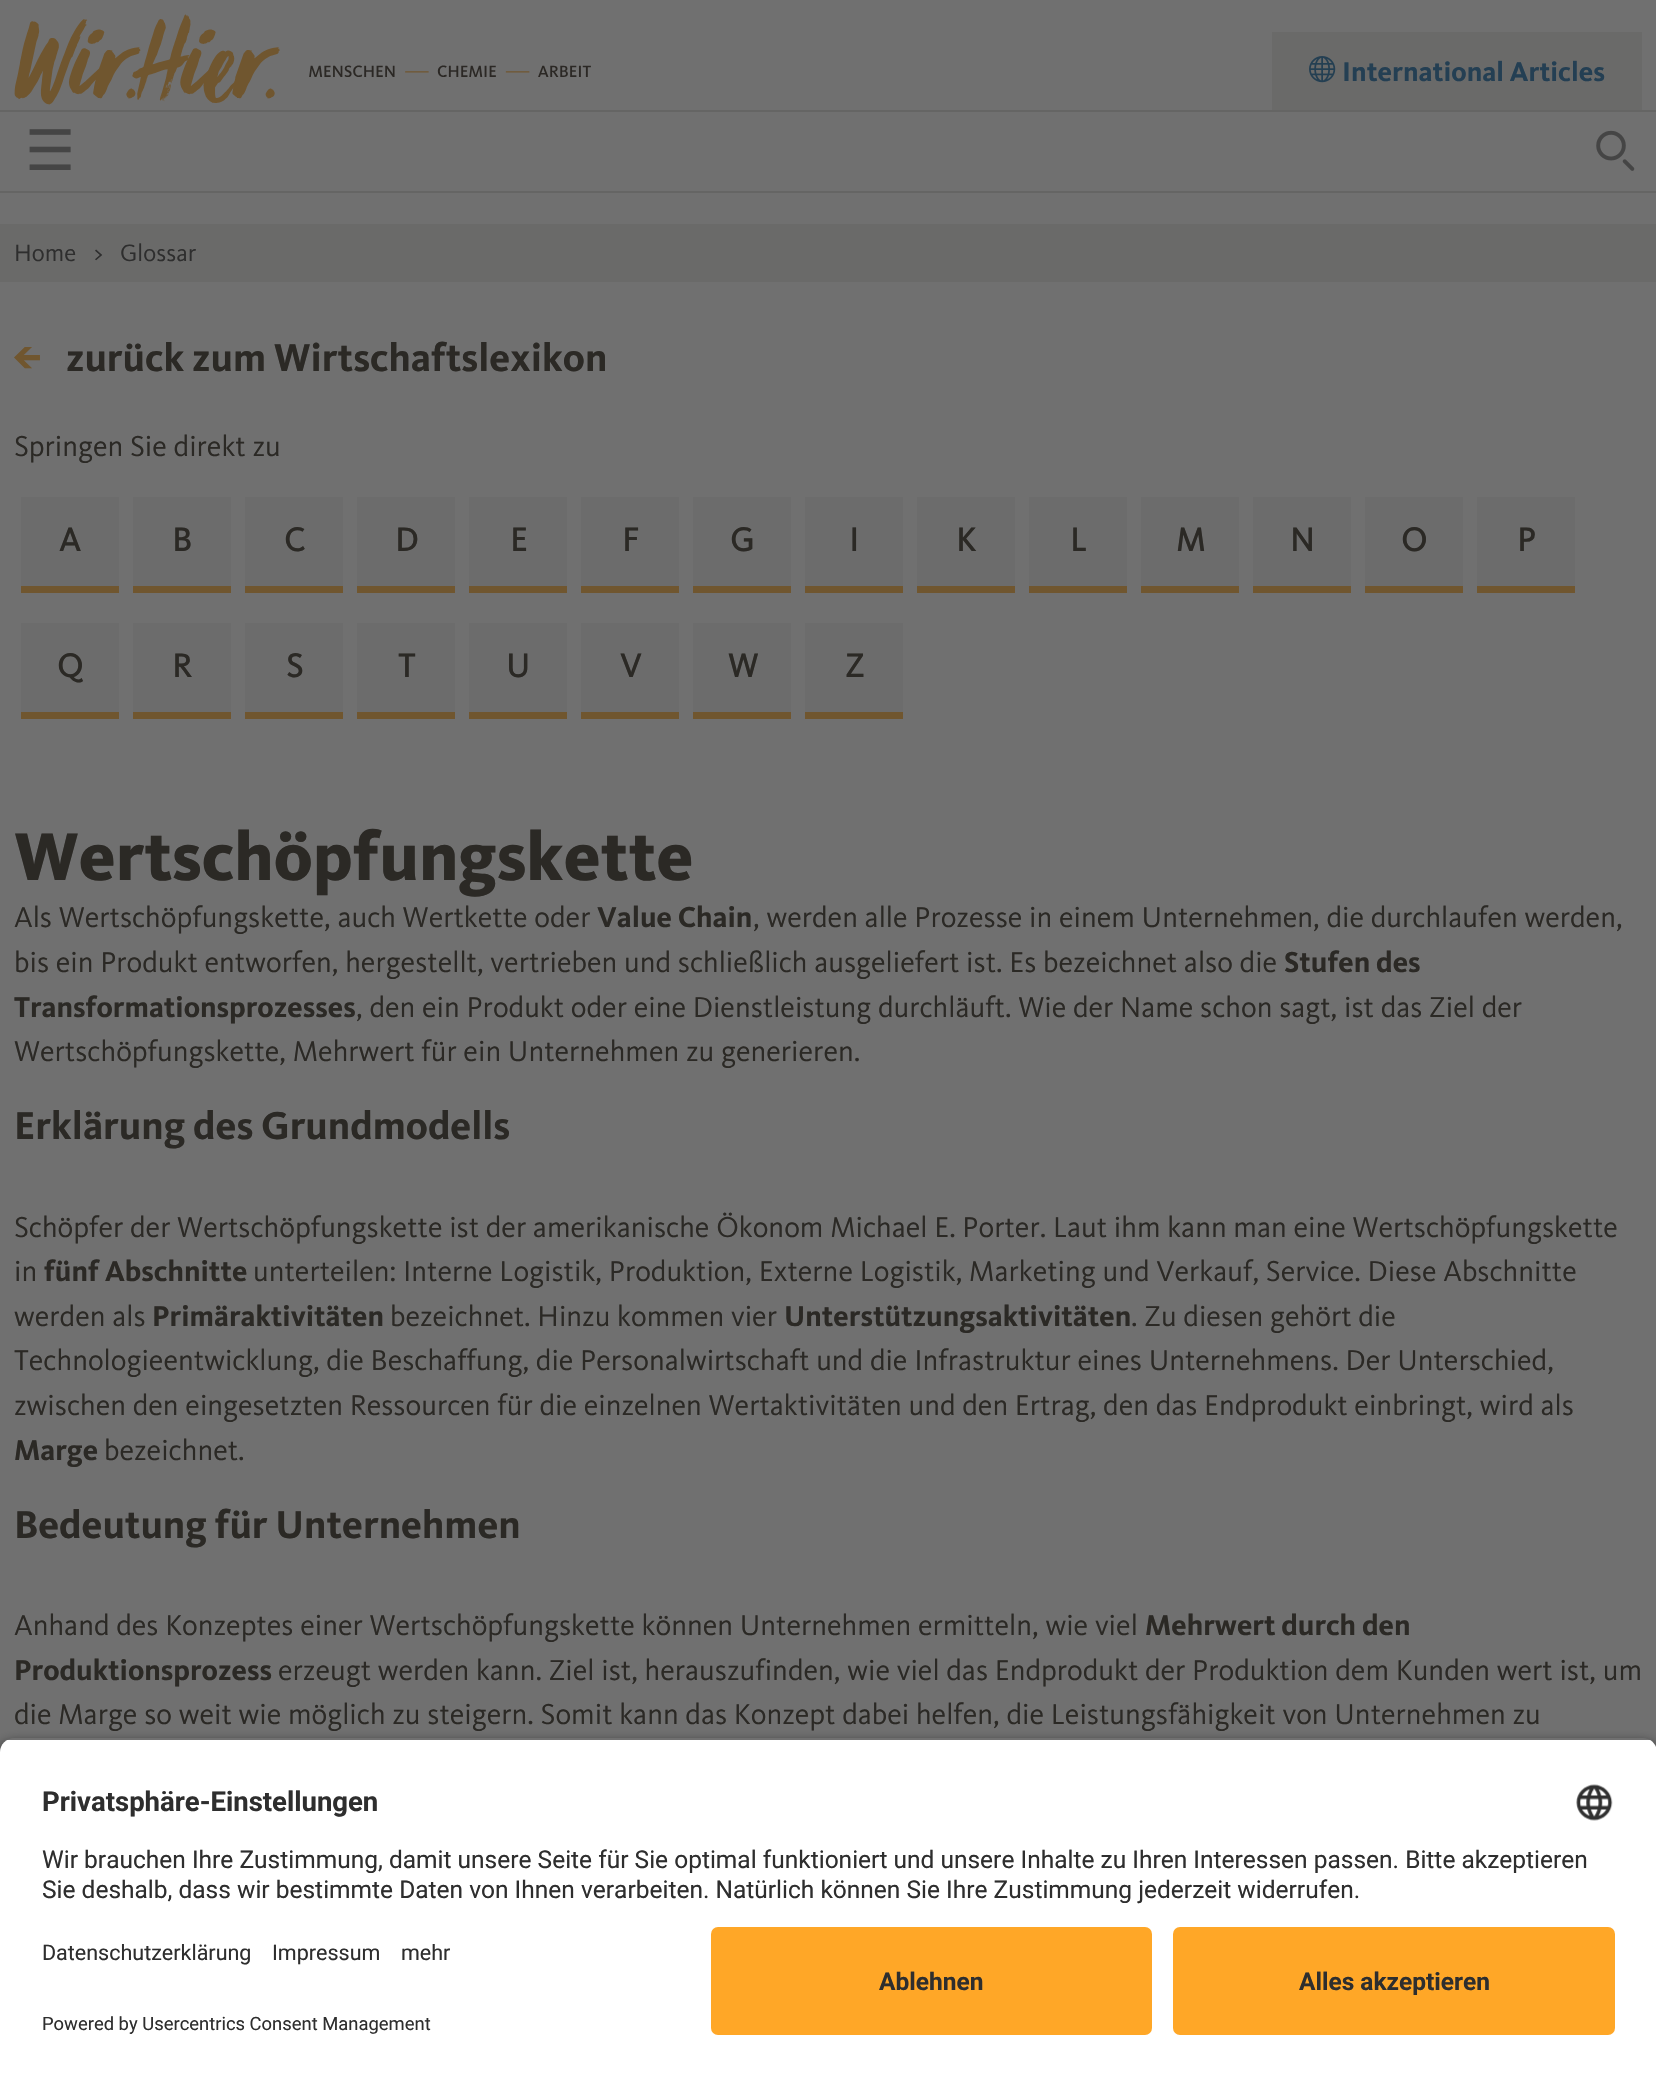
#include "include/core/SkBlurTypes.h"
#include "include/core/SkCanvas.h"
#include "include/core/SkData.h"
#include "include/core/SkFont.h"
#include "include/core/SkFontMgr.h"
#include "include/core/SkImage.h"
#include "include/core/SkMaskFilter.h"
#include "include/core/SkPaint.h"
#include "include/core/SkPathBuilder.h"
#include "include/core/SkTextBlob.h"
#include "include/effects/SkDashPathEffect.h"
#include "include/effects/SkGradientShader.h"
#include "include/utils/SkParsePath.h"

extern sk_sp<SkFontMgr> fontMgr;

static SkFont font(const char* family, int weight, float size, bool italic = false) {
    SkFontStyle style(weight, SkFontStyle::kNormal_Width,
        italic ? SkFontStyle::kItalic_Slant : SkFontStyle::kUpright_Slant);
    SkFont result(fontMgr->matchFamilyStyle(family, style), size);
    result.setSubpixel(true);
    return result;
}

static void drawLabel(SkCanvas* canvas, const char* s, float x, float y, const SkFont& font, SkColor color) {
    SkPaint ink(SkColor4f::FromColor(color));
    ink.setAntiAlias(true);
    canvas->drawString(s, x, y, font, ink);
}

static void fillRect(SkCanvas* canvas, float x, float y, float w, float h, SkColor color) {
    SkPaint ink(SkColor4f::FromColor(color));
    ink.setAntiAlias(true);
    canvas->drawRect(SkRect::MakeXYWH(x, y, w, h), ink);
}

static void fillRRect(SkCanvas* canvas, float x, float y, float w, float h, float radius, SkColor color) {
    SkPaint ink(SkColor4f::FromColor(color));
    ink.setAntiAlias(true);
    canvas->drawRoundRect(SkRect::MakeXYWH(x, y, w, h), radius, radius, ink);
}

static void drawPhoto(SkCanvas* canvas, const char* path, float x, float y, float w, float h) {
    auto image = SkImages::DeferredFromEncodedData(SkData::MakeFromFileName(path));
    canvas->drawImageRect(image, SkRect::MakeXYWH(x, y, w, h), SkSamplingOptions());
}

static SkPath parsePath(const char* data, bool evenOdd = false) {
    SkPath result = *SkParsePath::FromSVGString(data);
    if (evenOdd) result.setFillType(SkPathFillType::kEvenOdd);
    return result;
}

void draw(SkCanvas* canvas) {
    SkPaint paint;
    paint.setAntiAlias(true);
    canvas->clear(0xFF707070);
    drawPhoto(canvas, "assets/img1.png", 14, 14, 577, 91);
    fillRect(canvas, 1272, 32, 370, 78, 0xFF6A6A69);
    drawPhoto(canvas, "assets/img2.png", 1309, 56, 27, 27);
    SkFont font1 = font("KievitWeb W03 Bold", 700, 28);
    drawLabel(canvas, "International Articles", 1342, 81, font1, 0xFF243F53);
    fillRect(canvas, 0, 110, 1656, 2, 0xFF656564);
    SkFont font2 = font("DejaVu Sans", 400, 56);
    drawLabel(canvas, "☰", 25, 170, font2, 0xFF454545);
    drawPhoto(canvas, "assets/img3.png", 1596, 130, 39, 41);
    fillRect(canvas, 0, 191, 1656, 2, 0xFF656564);
    fillRect(canvas, 0, 224, 1656, 58, 0xFF6A6A69);
    SkFont font3 = font("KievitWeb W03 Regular", 400, 24.5f);
    drawLabel(canvas, "Home", 14, 261, font3, 0xFF2E2E2E);
    drawLabel(canvas, ">", 94, 261, font3, 0xFF2E2E2E);
    drawLabel(canvas, "Glossar", 120, 261, font3, 0xFF2E2E2E);
    SkFont font4 = font("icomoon", 400, 46);
    drawLabel(canvas, "-", 14, 376, font4, 0xFF70562F);
    SkFont font5 = font("KievitWeb W03 Bold", 700, 40.25f);
    drawLabel(canvas, "zurück zum Wirtschaftslexikon", 66, 371, font5, 0xFF2B2925);
    SkFont font6 = font("KievitWeb W03 Regular", 400, 29.75f);
    drawLabel(canvas, "Springen Sie direkt zu", 14, 456, font6, 0xFF2B2925);
    fillRect(canvas, 21, 497, 98, 89, 0xFF6C6C6C);
    fillRect(canvas, 21, 586, 98, 7, 0xFF70562F);
    SkFont font7 = font("KievitWeb W03 Regular", 700, 34);
    drawLabel(canvas, "A", 59, 551, font7, 0xFF2B2925);
    fillRect(canvas, 133, 497, 98, 89, 0xFF6C6C6C);
    fillRect(canvas, 133, 586, 98, 7, 0xFF70562F);
    drawLabel(canvas, "B", 172, 551, font7, 0xFF2B2925);
    fillRect(canvas, 245, 497, 98, 89, 0xFF6C6C6C);
    fillRect(canvas, 245, 586, 98, 7, 0xFF70562F);
    drawLabel(canvas, "C", 284, 551, font7, 0xFF2B2925);
    fillRect(canvas, 357, 497, 98, 89, 0xFF6C6C6C);
    fillRect(canvas, 357, 586, 98, 7, 0xFF70562F);
    drawLabel(canvas, "D", 395, 551, font7, 0xFF2B2925);
    fillRect(canvas, 469, 497, 98, 89, 0xFF6C6C6C);
    fillRect(canvas, 469, 586, 98, 7, 0xFF70562F);
    drawLabel(canvas, "E", 510, 551, font7, 0xFF2B2925);
    fillRect(canvas, 581, 497, 98, 89, 0xFF6C6C6C);
    fillRect(canvas, 581, 586, 98, 7, 0xFF70562F);
    drawLabel(canvas, "F", 622, 551, font7, 0xFF2B2925);
    fillRect(canvas, 693, 497, 98, 89, 0xFF6C6C6C);
    fillRect(canvas, 693, 586, 98, 7, 0xFF70562F);
    drawLabel(canvas, "G", 730, 551, font7, 0xFF2B2925);
    fillRect(canvas, 805, 497, 98, 89, 0xFF6C6C6C);
    fillRect(canvas, 805, 586, 98, 7, 0xFF70562F);
    drawLabel(canvas, "I", 849, 551, font7, 0xFF2B2925);
    fillRect(canvas, 917, 497, 98, 89, 0xFF6C6C6C);
    fillRect(canvas, 917, 586, 98, 7, 0xFF70562F);
    drawLabel(canvas, "K", 956, 551, font7, 0xFF2B2925);
    fillRect(canvas, 1029, 497, 98, 89, 0xFF6C6C6C);
    fillRect(canvas, 1029, 586, 98, 7, 0xFF70562F);
    drawLabel(canvas, "L", 1070, 551, font7, 0xFF2B2925);
    fillRect(canvas, 1141, 497, 98, 89, 0xFF6C6C6C);
    fillRect(canvas, 1141, 586, 98, 7, 0xFF70562F);
    drawLabel(canvas, "M", 1176, 551, font7, 0xFF2B2925);
    fillRect(canvas, 1253, 497, 98, 89, 0xFF6C6C6C);
    fillRect(canvas, 1253, 586, 98, 7, 0xFF70562F);
    drawLabel(canvas, "N", 1290, 551, font7, 0xFF2B2925);
    fillRect(canvas, 1365, 497, 98, 89, 0xFF6C6C6C);
    fillRect(canvas, 1365, 586, 98, 7, 0xFF70562F);
    drawLabel(canvas, "O", 1401, 551, font7, 0xFF2B2925);
    fillRect(canvas, 1477, 497, 98, 89, 0xFF6C6C6C);
    fillRect(canvas, 1477, 586, 98, 7, 0xFF70562F);
    drawLabel(canvas, "P", 1517, 551, font7, 0xFF2B2925);
    fillRect(canvas, 21, 623, 98, 89, 0xFF6C6C6C);
    fillRect(canvas, 21, 712, 98, 7, 0xFF70562F);
    drawLabel(canvas, "Q", 57, 677, font7, 0xFF2B2925);
    fillRect(canvas, 133, 623, 98, 89, 0xFF6C6C6C);
    fillRect(canvas, 133, 712, 98, 7, 0xFF70562F);
    drawLabel(canvas, "R", 172, 677, font7, 0xFF2B2925);
    fillRect(canvas, 245, 623, 98, 89, 0xFF6C6C6C);
    fillRect(canvas, 245, 712, 98, 7, 0xFF70562F);
    drawLabel(canvas, "S", 286, 677, font7, 0xFF2B2925);
    fillRect(canvas, 357, 623, 98, 89, 0xFF6C6C6C);
    fillRect(canvas, 357, 712, 98, 7, 0xFF70562F);
    drawLabel(canvas, "T", 398, 677, font7, 0xFF2B2925);
    fillRect(canvas, 469, 623, 98, 89, 0xFF6C6C6C);
    fillRect(canvas, 469, 712, 98, 7, 0xFF70562F);
    drawLabel(canvas, "U", 506, 677, font7, 0xFF2B2925);
    fillRect(canvas, 581, 623, 98, 89, 0xFF6C6C6C);
    fillRect(canvas, 581, 712, 98, 7, 0xFF70562F);
    drawLabel(canvas, "V", 620, 677, font7, 0xFF2B2925);
    fillRect(canvas, 693, 623, 98, 89, 0xFF6C6C6C);
    fillRect(canvas, 693, 712, 98, 7, 0xFF70562F);
    drawLabel(canvas, "W", 728, 677, font7, 0xFF2B2925);
    fillRect(canvas, 805, 623, 98, 89, 0xFF6C6C6C);
    fillRect(canvas, 805, 712, 98, 7, 0xFF70562F);
    drawLabel(canvas, "Z", 845, 677, font7, 0xFF2B2925);
    SkFont font8 = font("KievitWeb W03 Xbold", 700, 70);
    drawLabel(canvas, "Wertschöpfungskette", 14, 880, font8, 0xFF2B2925);
    drawLabel(canvas, "Als Wertschöpfungskette, auch Wertkette oder", 14, 927, font6, 0xFF2B2925);
    SkFont font9 = font("KievitWeb W03 Bold", 700, 29.75f);
    drawLabel(canvas, "Value Chain", 597, 927, font9, 0xFF2B2925);
    drawLabel(canvas, ", werden alle Prozesse in einem Unternehmen, die durchlaufen werden,", 753, 927, font6, 0xFF2B2925);
    drawLabel(canvas, "bis ein Produkt entworfen, hergestellt, vertrieben und schließlich ausgeliefert ist. Es bezeichnet also die", 14, 972, font6, 0xFF2B2925);
    drawLabel(canvas, "Stufen des", 1284, 972, font9, 0xFF2B2925);
    drawLabel(canvas, "Transformationsprozesses", 14, 1017, font9, 0xFF2B2925);
    drawLabel(canvas, ", den ein Produkt oder eine Dienstleistung durchläuft. Wie der Name schon sagt, ist das Ziel der", 356, 1017, font6, 0xFF2B2925);
    drawLabel(canvas, "Wertschöpfungskette, Mehrwert für ein Unternehmen zu generieren.", 14, 1061, font6, 0xFF2B2925);
    drawLabel(canvas, "Erklärung des Grundmodells", 14, 1139, font5, 0xFF2B2925);
    drawLabel(canvas, "Schöpfer der Wertschöpfungskette ist der amerikanische Ökonom Michael E. Porter. Laut ihm kann man eine Wertschöpfungskette", 14, 1237, font6, 0xFF2B2925);
    drawLabel(canvas, "in", 14, 1281, font6, 0xFF2B2925);
    drawLabel(canvas, "fünf Abschnitte", 44, 1281, font9, 0xFF2B2925);
    drawLabel(canvas, "unterteilen: Interne Logistik, Produktion, Externe Logistik, Marketing und Verkauf, Service. Diese Abschnitte", 253, 1281, font6, 0xFF2B2925);
    drawLabel(canvas, "werden als", 14, 1326, font6, 0xFF2B2925);
    drawLabel(canvas, "Primäraktivitäten", 152, 1326, font9, 0xFF2B2925);
    drawLabel(canvas, "bezeichnet. Hinzu kommen vier", 390, 1326, font6, 0xFF2B2925);
    drawLabel(canvas, "Unterstützungsaktivitäten", 784, 1326, font9, 0xFF2B2925);
    drawLabel(canvas, ". Zu diesen gehört die", 1131, 1326, font6, 0xFF2B2925);
    drawLabel(canvas, "Technologieentwicklung, die Beschaffung, die Personalwirtschaft und die Infrastruktur eines Unternehmens. Der Unterschied,", 14, 1370, font6, 0xFF2B2925);
    drawLabel(canvas, "zwischen den eingesetzten Ressourcen für die einzelnen Wertaktivitäten und den Ertrag, den das Endprodukt einbringt, wird als", 14, 1415, font6, 0xFF2B2925);
    drawLabel(canvas, "Marge", 14, 1460, font9, 0xFF2B2925);
    drawLabel(canvas, "bezeichnet.", 104, 1460, font6, 0xFF2B2925);
    drawLabel(canvas, "Bedeutung für Unternehmen", 14, 1538, font5, 0xFF2B2925);
    drawLabel(canvas, "Anhand des Konzeptes einer Wertschöpfungskette können Unternehmen ermitteln, wie viel", 14, 1635, font6, 0xFF2B2925);
    drawLabel(canvas, "Mehrwert durch den", 1145, 1635, font9, 0xFF2B2925);
    drawLabel(canvas, "Produktionsprozess", 14, 1680, font9, 0xFF2B2925);
    drawLabel(canvas, "erzeugt werden kann. Ziel ist, herauszufinden, wie viel das Endprodukt der Produktion dem Kunden wert ist, um", 278, 1680, font6, 0xFF2B2925);
    drawLabel(canvas, "die Marge so weit wie möglich zu steigern. Somit kann das Konzept dabei helfen, die Leistungsfähigkeit von Unternehmen zu", 14, 1724, font6, 0xFF2B2925);
    canvas->save();
    canvas->clipPath(parsePath("M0 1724H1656V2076H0ZM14 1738H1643C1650.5 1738 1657 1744.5 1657 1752V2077H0V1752C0 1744.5 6.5 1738 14 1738Z", true), true);
    paint.setColor(0xCC000000);
    paint.setMaskFilter(SkMaskFilter::MakeBlur(kNormal_SkBlurStyle, 6));
    canvas->drawRoundRect(SkRect::MakeXYWH(0, 1743, 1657, 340), 14, 14, paint);
    paint.setMaskFilter(nullptr);
    canvas->restore();
    canvas->save();
    canvas->clipPath(parsePath("M14 1738H1643C1650.5 1738 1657 1744.5 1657 1752V1913H0V1752C0 1744.5 6.5 1738 14 1738Z"), true);
    fillRect(canvas, 0, 1740, 1656, 173, 0xFFFFFFFF);
    canvas->restore();
    SkFont font10 = font("Roboto", 700, 27.5f);
    drawLabel(canvas, "Privatsphäre-Einstellungen", 42, 1811, font10, 0xFF2E2E2E);
    drawPhoto(canvas, "assets/img4.png", 1576, 1784, 37, 37);
    SkFont font11 = font("Roboto", 400, 24.5f);
    drawLabel(canvas, "Wir brauchen Ihre Zustimmung, damit unsere Seite für Sie optimal funktioniert und unsere Inhalte zu Ihren Interessen passen. Bitte akzeptieren", 42, 1868, font11, 0xFF2E2E2E);
    drawLabel(canvas, "Sie deshalb, dass wir bestimmte Daten von Ihnen verarbeiten. Natürlich können Sie Ihre Zustimmung jederzeit widerrufen.", 42, 1898, font11, 0xFF2E2E2E);
    fillRect(canvas, 0, 1913, 1656, 163, 0xFFFFFFFF);
    SkFont font12 = font("Roboto", 400, 21.5f);
    drawLabel(canvas, "Datenschutzerklärung", 42, 1960, font12, 0xFF2E2E2E);
    drawLabel(canvas, "Impressum", 272, 1960, font12, 0xFF2E2E2E);
    drawLabel(canvas, "mehr", 401, 1960, font12, 0xFF2E2E2E);
    SkFont font13 = font("Roboto", 400, 18.4f);
    drawLabel(canvas, "Powered by Usercentrics Consent Management", 42, 2030, font13, 0xFF2E2E2E);
    fillRRect(canvas, 711, 1927, 441, 108, 7, 0xFFFFA727);
    SkFont font14 = font("Roboto", 700, 24.5f);
    drawLabel(canvas, "Ablehnen", 879, 1990, font14, 0xFF2E2E2E);
    fillRRect(canvas, 1173, 1927, 442, 108, 7, 0xFFFFA727);
    drawLabel(canvas, "Alles akzeptieren", 1299, 1990, font14, 0xFF2E2E2E);
}
